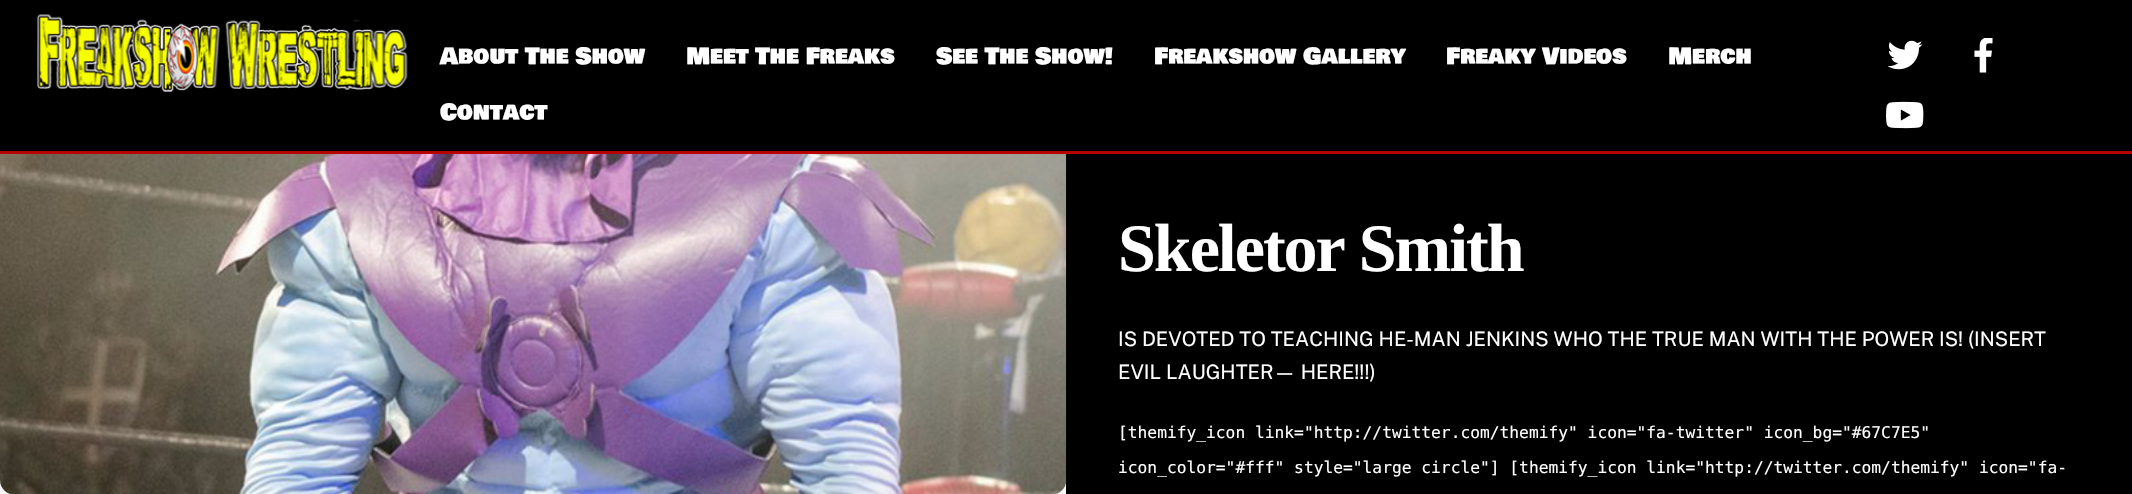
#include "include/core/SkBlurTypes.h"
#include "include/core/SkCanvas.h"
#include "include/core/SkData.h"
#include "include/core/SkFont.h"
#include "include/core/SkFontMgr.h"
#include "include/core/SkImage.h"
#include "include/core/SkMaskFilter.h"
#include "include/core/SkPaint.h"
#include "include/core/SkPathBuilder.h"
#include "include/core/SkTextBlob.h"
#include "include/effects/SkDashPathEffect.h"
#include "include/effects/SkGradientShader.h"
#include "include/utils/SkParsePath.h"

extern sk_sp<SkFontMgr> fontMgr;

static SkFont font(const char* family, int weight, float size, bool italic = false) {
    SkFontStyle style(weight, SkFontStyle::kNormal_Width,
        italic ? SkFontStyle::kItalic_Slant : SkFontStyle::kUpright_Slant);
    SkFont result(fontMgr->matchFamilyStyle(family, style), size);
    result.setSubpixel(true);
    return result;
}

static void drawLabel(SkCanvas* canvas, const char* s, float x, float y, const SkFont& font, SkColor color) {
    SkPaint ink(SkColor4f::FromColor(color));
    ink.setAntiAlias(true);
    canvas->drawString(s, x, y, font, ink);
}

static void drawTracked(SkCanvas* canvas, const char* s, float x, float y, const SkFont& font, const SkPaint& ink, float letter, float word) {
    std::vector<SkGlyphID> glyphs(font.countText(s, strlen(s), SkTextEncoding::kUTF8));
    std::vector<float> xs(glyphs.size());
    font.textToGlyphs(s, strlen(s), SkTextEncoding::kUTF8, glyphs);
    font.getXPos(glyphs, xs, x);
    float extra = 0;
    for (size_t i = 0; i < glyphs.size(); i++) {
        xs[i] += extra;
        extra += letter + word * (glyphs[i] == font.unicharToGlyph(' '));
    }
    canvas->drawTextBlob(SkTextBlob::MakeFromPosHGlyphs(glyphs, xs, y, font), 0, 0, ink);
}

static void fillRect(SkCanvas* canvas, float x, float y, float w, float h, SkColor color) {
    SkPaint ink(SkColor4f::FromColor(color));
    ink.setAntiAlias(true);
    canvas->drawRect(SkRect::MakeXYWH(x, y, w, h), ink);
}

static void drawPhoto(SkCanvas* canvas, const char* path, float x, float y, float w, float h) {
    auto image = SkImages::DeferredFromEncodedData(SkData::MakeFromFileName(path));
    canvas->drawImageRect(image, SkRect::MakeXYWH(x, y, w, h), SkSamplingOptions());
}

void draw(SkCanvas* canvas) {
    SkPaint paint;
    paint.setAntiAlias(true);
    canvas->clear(0xFF000000);
    fillRect(canvas, 0, 151, 2132, 3, 0xFFB80000);
    drawPhoto(canvas, "assets/img1.png", 37, 14, 371, 78);
    SkFont font1 = font("Bowlby One SC", 400, 22.5f);
    drawLabel(canvas, "About The Show", 440, 64, font1, 0xFFFFFFFF);
    drawLabel(canvas, "Meet The Freaks", 686, 64, font1, 0xFFFFFFFF);
    drawLabel(canvas, "See The Show!", 936, 64, font1, 0xFFFFFFFF);
    drawLabel(canvas, "Freakshow Gallery", 1154, 64, font1, 0xFFFFFFFF);
    drawLabel(canvas, "Freaky Videos", 1446, 64, font1, 0xFFFFFFFF);
    drawLabel(canvas, "Merch", 1668, 64, font1, 0xFFFFFFFF);
    drawLabel(canvas, "Contact", 440, 120, font1, 0xFFFFFFFF);
    drawPhoto(canvas, "assets/img2.png", 1888, 40, 35, 30);
    drawPhoto(canvas, "assets/img3.png", 1974, 38, 19, 35);
    drawPhoto(canvas, "assets/img4.png", 1886, 101, 38, 28);
    fillRect(canvas, 0, 480, 1066, 14, 0xFFF7F7F7);
    drawPhoto(canvas, "assets/img5.png", 0, 154, 1067, 340);
    SkFont font2 = font("Liberation Serif", 700, 68);
    paint.setColor(0xFFFFFFFF);
    drawTracked(canvas, "Skeletor Smith", 1118, 271, font2, paint, -2, 0);
    SkFont font3 = font("Public Sans", 400, 20);
    drawLabel(canvas, "IS DEVOTED TO TEACHING HE-MAN JENKINS WHO THE TRUE MAN WITH THE POWER IS! (INSERT", 1118, 346, font3, 0xFFFFFFFF);
    drawLabel(canvas, "EVIL LAUGHTER— HERE!!!)", 1118, 379, font3, 0xFFFFFFFF);
    SkFont font4 = font("DejaVu Sans Mono", 400, 16.25f);
    drawLabel(canvas, "[themify_icon link=\"http://twitter.com/themify\" icon=\"fa-twitter\" icon_bg=\"#67C7E5\"", 1118, 438, font4, 0xFFFFFFFF);
    drawLabel(canvas, "icon_color=\"#fff\" style=\"large circle\"] [themify_icon link=\"http://twitter.com/themify\" icon=\"fa-", 1118, 473, font4, 0xFFFFFFFF);
}
